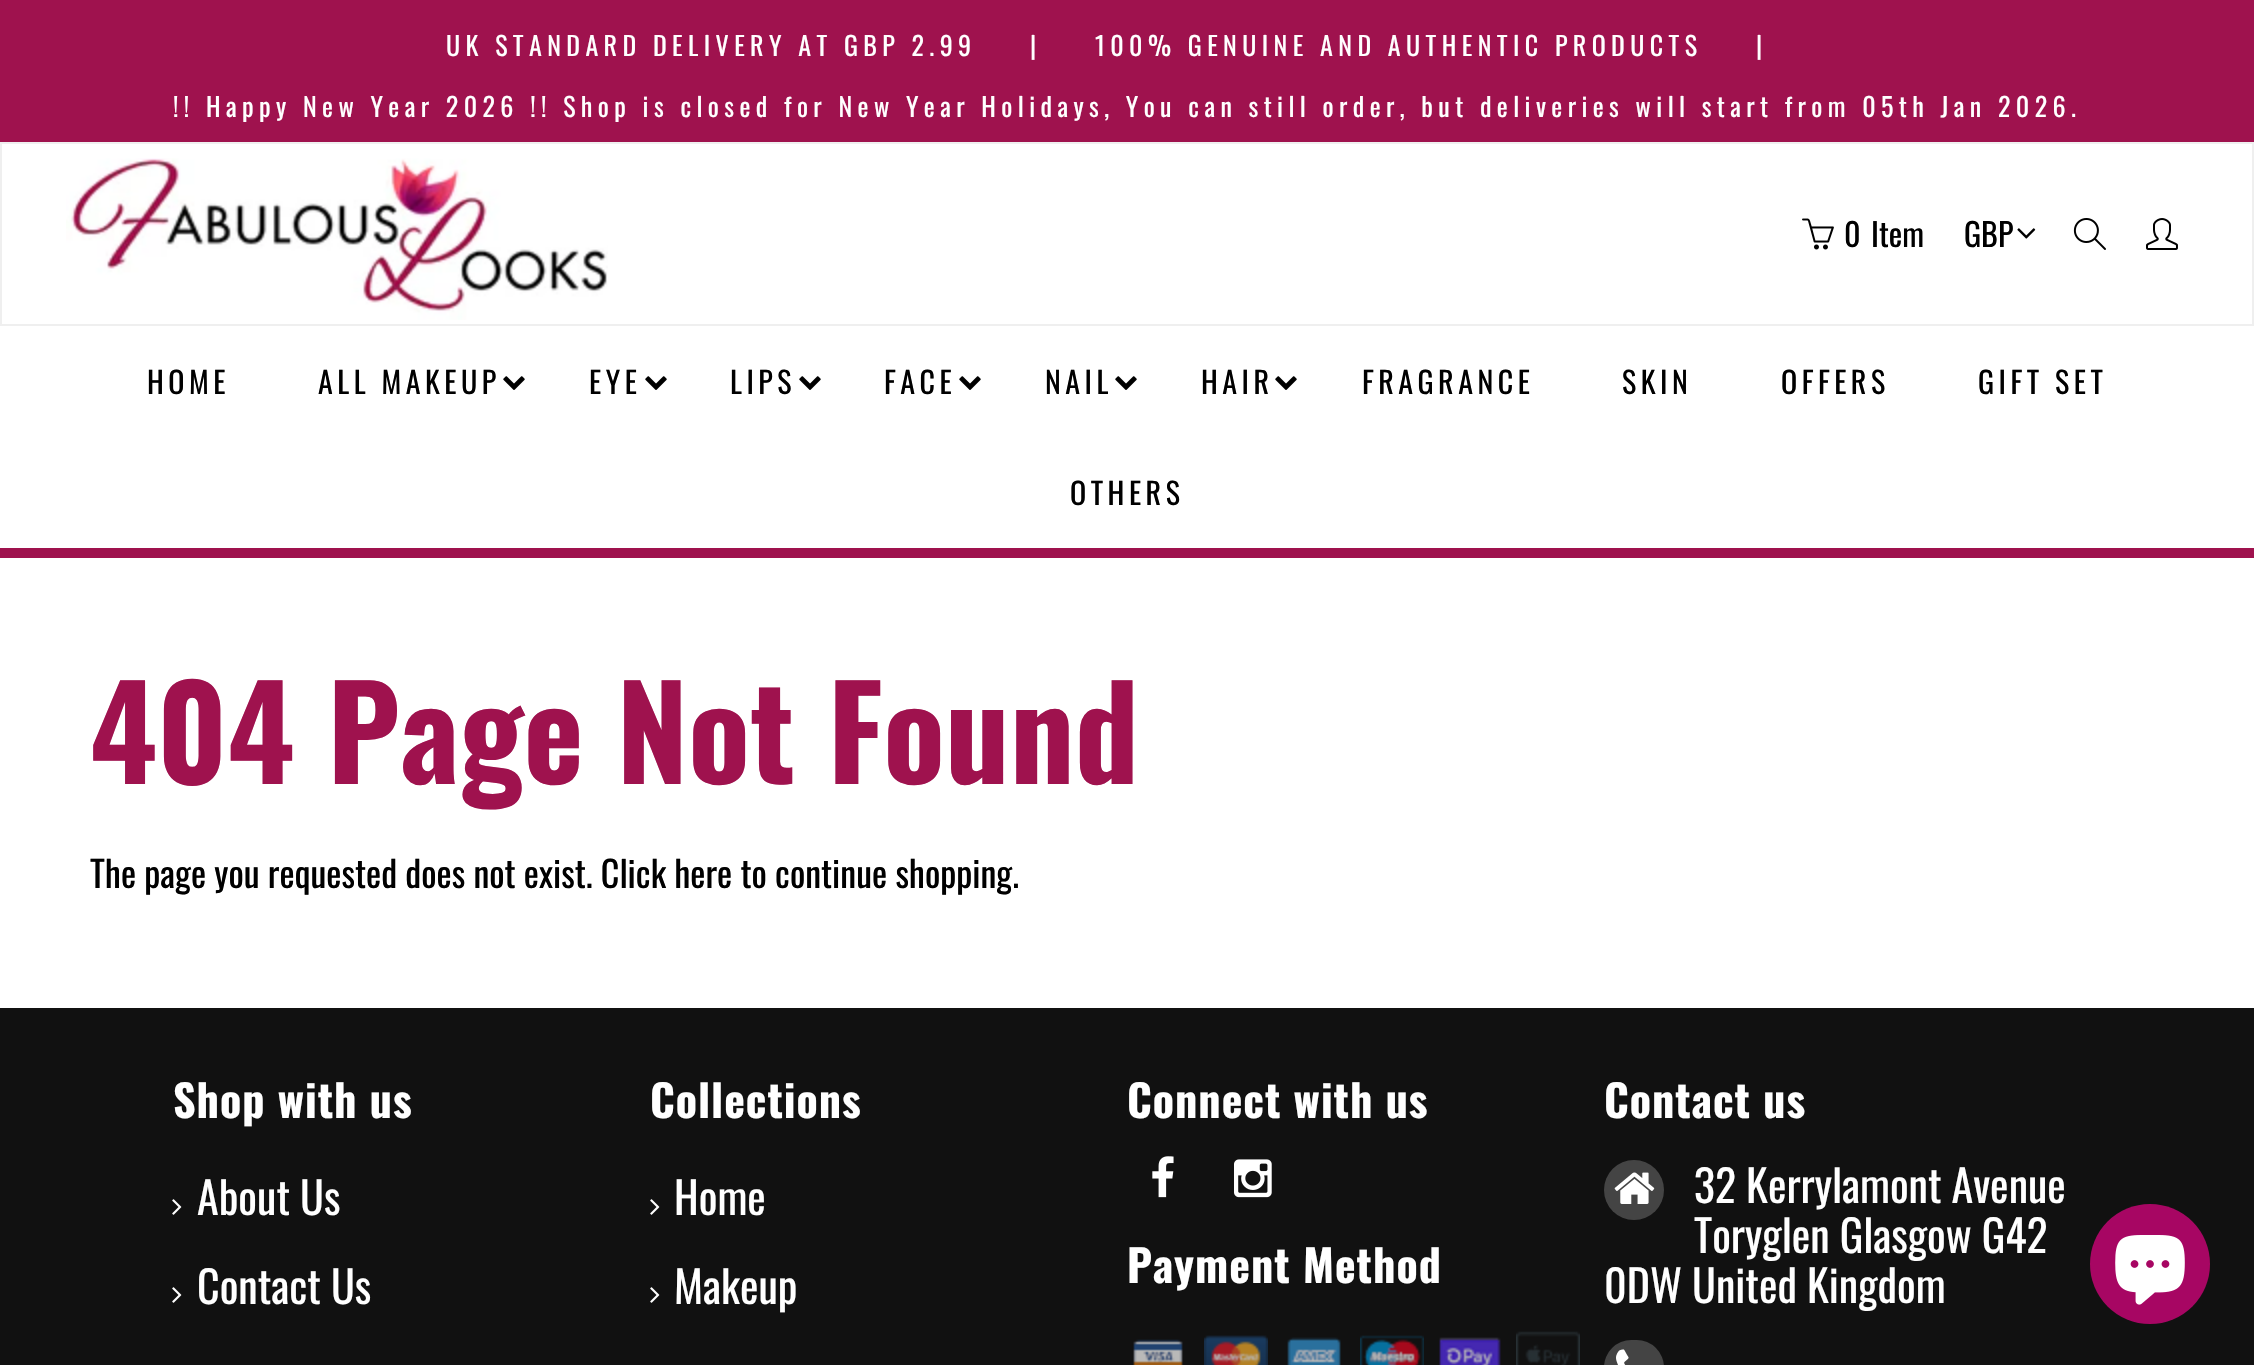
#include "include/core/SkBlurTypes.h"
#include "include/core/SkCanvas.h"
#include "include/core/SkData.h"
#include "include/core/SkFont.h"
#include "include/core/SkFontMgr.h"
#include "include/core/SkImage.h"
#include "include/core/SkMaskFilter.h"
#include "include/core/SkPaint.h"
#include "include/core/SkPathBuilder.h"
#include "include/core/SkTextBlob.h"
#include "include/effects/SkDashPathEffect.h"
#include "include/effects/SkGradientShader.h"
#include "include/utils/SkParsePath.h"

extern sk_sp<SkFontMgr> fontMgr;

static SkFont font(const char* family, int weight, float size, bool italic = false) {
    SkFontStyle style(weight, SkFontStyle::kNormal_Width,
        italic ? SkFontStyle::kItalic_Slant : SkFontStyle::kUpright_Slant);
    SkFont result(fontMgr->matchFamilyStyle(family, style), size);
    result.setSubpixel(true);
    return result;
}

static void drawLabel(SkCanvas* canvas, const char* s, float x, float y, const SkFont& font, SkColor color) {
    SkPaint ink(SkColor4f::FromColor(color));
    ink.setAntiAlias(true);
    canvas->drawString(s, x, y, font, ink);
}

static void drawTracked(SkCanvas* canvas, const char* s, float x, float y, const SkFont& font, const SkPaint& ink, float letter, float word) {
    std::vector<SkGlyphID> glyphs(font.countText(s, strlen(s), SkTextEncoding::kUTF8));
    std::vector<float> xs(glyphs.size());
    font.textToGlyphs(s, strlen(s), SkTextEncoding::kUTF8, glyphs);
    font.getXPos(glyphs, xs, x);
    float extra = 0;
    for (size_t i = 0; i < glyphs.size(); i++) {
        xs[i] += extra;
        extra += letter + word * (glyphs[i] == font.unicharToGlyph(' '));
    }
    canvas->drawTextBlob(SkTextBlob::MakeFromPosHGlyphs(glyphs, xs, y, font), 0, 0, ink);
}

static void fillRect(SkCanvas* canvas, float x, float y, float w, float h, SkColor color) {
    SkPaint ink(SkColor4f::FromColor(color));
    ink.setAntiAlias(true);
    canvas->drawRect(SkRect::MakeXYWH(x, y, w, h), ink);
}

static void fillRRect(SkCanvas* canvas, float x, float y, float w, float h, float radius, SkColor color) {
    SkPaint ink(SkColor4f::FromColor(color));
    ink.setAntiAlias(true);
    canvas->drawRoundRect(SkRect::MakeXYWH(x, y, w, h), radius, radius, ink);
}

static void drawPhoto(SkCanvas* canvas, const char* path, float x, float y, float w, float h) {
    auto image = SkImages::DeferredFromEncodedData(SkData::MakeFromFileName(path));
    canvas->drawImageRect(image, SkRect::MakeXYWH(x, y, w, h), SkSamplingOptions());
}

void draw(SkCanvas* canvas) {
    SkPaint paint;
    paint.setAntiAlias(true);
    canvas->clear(0xFFFFFFFF);
    fillRect(canvas, 0, 0, 2254, 142, 0xFF9F124E);
    SkFont font1 = font("Oswald", 400, 26);
    paint.setColor(0xFFFFFFFF);
    drawTracked(canvas, "UK STANDARD DELIVERY AT GBP 2.99", 446, 56, font1, paint, 5.4f, 0);
    drawTracked(canvas, "|", 1030, 56, font1, paint, 5.4f, 0);
    drawTracked(canvas, "100% GENUINE AND AUTHENTIC PRODUCTS", 1095, 56, font1, paint, 5.4f, 0);
    drawTracked(canvas, "|", 1756, 56, font1, paint, 5.4f, 0);
    drawTracked(canvas, "!! Happy New Year 2026 !! Shop is closed for New Year Holidays, You can still order, but deliveries will start from 05th Jan 2026.", 173, 117, font1, paint, 5.4f, 0);
    paint.setStroke(true);
    paint.setStrokeWidth(2);
    paint.setColor(0xFFEFEFEF);
    canvas->drawRect(SkRect::MakeXYWH(1, 143, 2252, 182), paint);
    drawPhoto(canvas, "assets/img1.png", 66, 158, 542, 162);
    drawPhoto(canvas, "assets/img2.png", 1802, 218, 32, 32);
    SkFont font2 = font("Oswald", 400, 32);
    drawLabel(canvas, "0", 1844, 247, font2, 0xFF000000);
    drawLabel(canvas, "Item", 1871, 247, font2, 0xFF000000);
    drawLabel(canvas, "GBP", 1964, 247, font2, 0xFF000000);
    drawPhoto(canvas, "assets/img3.png", 2017, 228, 19, 11);
    drawPhoto(canvas, "assets/img4.png", 2073, 218, 33, 32);
    drawPhoto(canvas, "assets/img5.png", 2146, 218, 32, 32);
    fillRect(canvas, 0, 548, 2254, 10, 0xFF9F124E);
    SkFont font3 = font("Oswald", 400, 30);
    paint.setStroke(false);
    paint.setColor(0xFF000000);
    drawTracked(canvas, "HOME", 147, 394, font3, paint, 4.5f, 0);
    drawTracked(canvas, "ALL MAKEUP", 318, 394, font3, paint, 4.5f, 0);
    drawPhoto(canvas, "assets/img6.png", 503, 376, 22, 14);
    drawTracked(canvas, "EYE", 589, 394, font3, paint, 4.5f, 0);
    drawPhoto(canvas, "assets/img6.png", 645, 376, 22, 14);
    drawTracked(canvas, "LIPS", 730, 394, font3, paint, 4.5f, 0);
    drawPhoto(canvas, "assets/img6.png", 799, 376, 22, 14);
    drawTracked(canvas, "FACE", 884, 394, font3, paint, 4.5f, 0);
    drawPhoto(canvas, "assets/img6.png", 959, 376, 22, 14);
    drawTracked(canvas, "NAIL", 1045, 394, font3, paint, 4.5f, 0);
    drawPhoto(canvas, "assets/img6.png", 1115, 376, 22, 14);
    drawTracked(canvas, "HAIR", 1201, 394, font3, paint, 4.5f, 0);
    drawPhoto(canvas, "assets/img6.png", 1275, 376, 22, 14);
    drawTracked(canvas, "FRAGRANCE", 1362, 394, font3, paint, 4.5f, 0);
    drawTracked(canvas, "SKIN", 1622, 394, font3, paint, 4.5f, 0);
    drawTracked(canvas, "OFFERS", 1781, 394, font3, paint, 4.5f, 0);
    drawTracked(canvas, "GIFT SET", 1978, 394, font3, paint, 4.5f, 0);
    drawTracked(canvas, "OTHERS", 1070, 505, font3, paint, 4.5f, 0);
    SkFont font4 = font("Oswald", 700, 128);
    drawLabel(canvas, "404 Page Not Found", 90, 784, font4, 0xFF9F124E);
    SkFont font5 = font("Oswald", 400, 36);
    drawLabel(canvas, "The page you requested does not exist. Click here to continue shopping.", 90, 888, font5, 0xFF000000);
    fillRect(canvas, 0, 1008, 2254, 357, 0xFF111111);
    SkFont font6 = font("Oswald", 700, 44);
    paint.setColor(0xFFFFFFFF);
    drawTracked(canvas, "Shop with us", 173, 1118, font6, paint, 1, 0);
    drawPhoto(canvas, "assets/img7.png", 172, 1199, 10, 16);
    SkFont font7 = font("Oswald", 400, 44);
    drawLabel(canvas, "About Us", 197, 1215, font7, 0xFFFFFFFF);
    drawPhoto(canvas, "assets/img7.png", 172, 1287, 10, 16);
    drawLabel(canvas, "Contact Us", 197, 1304, font7, 0xFFFFFFFF);
    drawTracked(canvas, "Collections", 650, 1118, font6, paint, 1, 0);
    drawPhoto(canvas, "assets/img7.png", 650, 1199, 10, 16);
    drawLabel(canvas, "Home", 674, 1215, font7, 0xFFFFFFFF);
    drawPhoto(canvas, "assets/img7.png", 650, 1287, 10, 16);
    drawLabel(canvas, "Makeup", 674, 1304, font7, 0xFFFFFFFF);
    drawTracked(canvas, "Connect with us", 1127, 1118, font6, paint, 1, 0);
    drawPhoto(canvas, "assets/img8.png", 1152, 1156, 22, 42);
    drawPhoto(canvas, "assets/img9.png", 1234, 1159, 38, 39);
    drawTracked(canvas, "Payment Method", 1127, 1283, font6, paint, 1, 0);
    drawPhoto(canvas, "assets/img10.png", 1133, 1339, 50, 26);
    drawPhoto(canvas, "assets/img11.png", 1204, 1335, 64, 30);
    drawPhoto(canvas, "assets/img12.png", 1287, 1337, 54, 28);
    drawPhoto(canvas, "assets/img13.png", 1360, 1335, 64, 30);
    drawPhoto(canvas, "assets/img14.png", 1439, 1337, 62, 28);
    drawPhoto(canvas, "assets/img15.png", 1516, 1331, 64, 34);
    drawTracked(canvas, "Contact us", 1604, 1118, font6, paint, 1, 0);
    paint.setColor(0xFF444444);
    canvas->drawCircle(1634, 1190, 30, paint);
    drawPhoto(canvas, "assets/img16.png", 1614, 1172, 41, 32);
    drawLabel(canvas, "32 Kerrylamont Avenue", 1694, 1203, font7, 0xFFFFFFFF);
    drawLabel(canvas, "Toryglen Glasgow G42", 1694, 1253, font7, 0xFFFFFFFF);
    drawLabel(canvas, "0DW United Kingdom", 1604, 1303, font7, 0xFFFFFFFF);
    fillRRect(canvas, 1604, 1340, 60, 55, 30, 0xFF444444);
    drawPhoto(canvas, "assets/img17.png", 1616, 1349, 13, 16);
    paint.setColor(0xFFA70663);
    canvas->drawCircle(2150, 1264, 60, paint);
    drawPhoto(canvas, "assets/img18.png", 2115, 1235, 70, 70);
}
